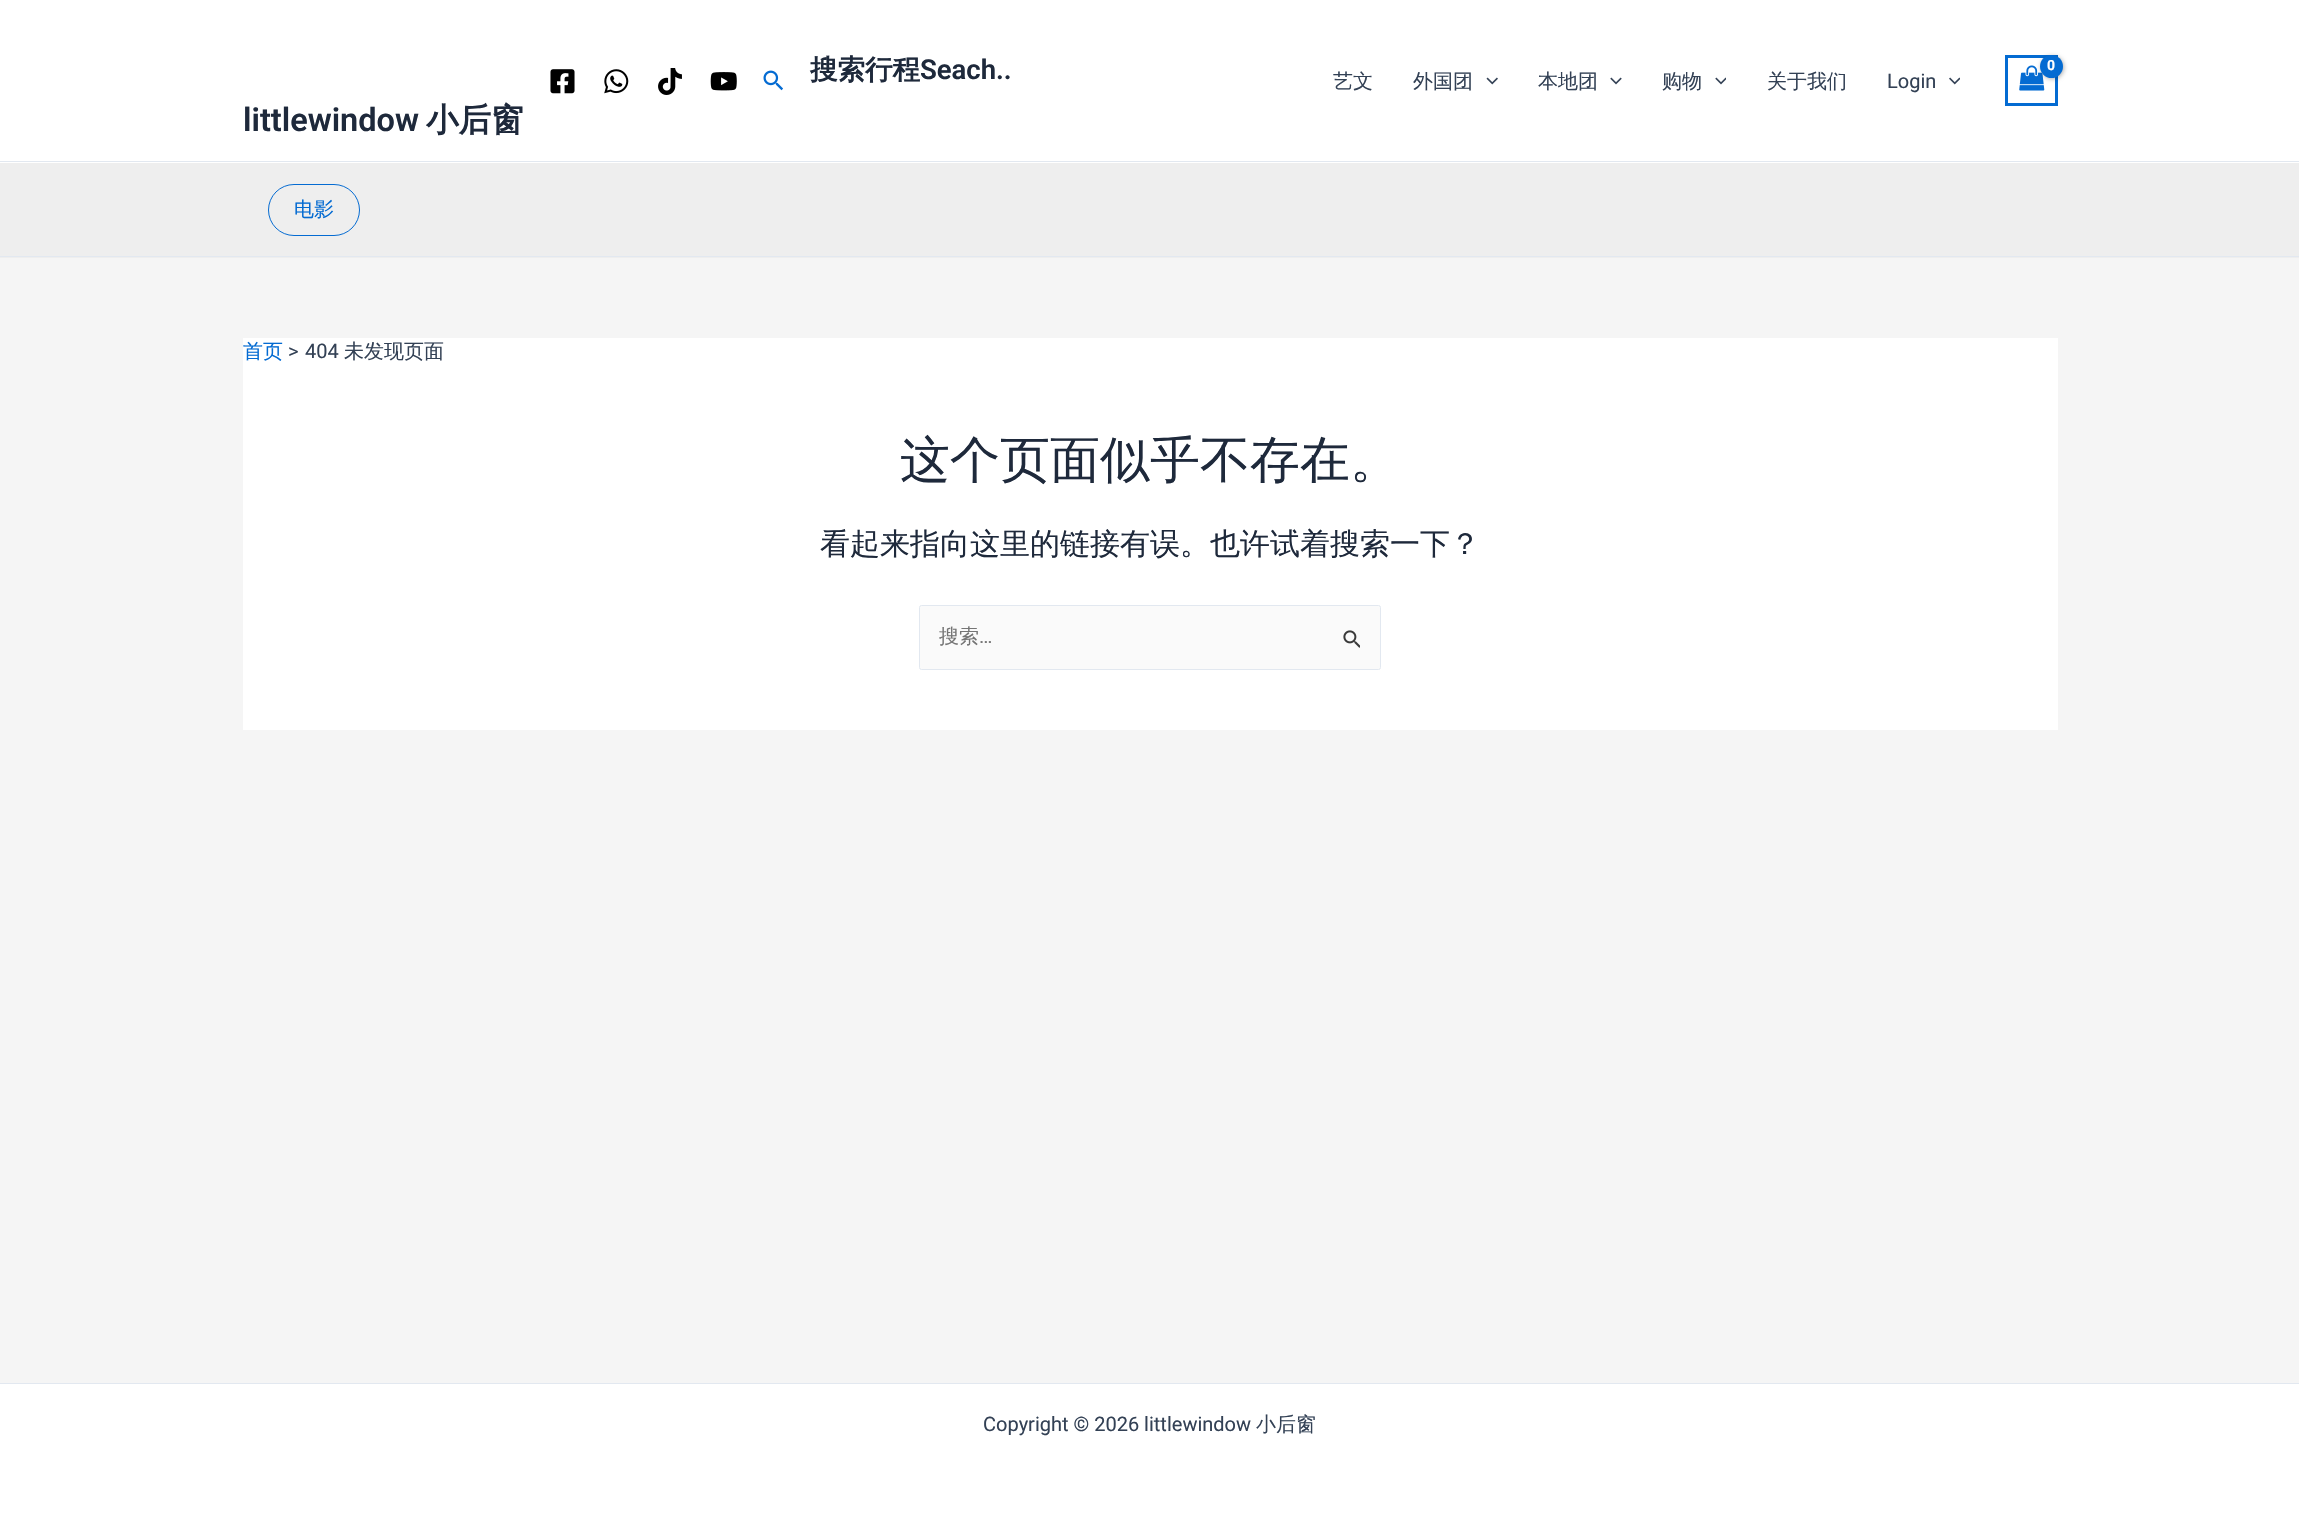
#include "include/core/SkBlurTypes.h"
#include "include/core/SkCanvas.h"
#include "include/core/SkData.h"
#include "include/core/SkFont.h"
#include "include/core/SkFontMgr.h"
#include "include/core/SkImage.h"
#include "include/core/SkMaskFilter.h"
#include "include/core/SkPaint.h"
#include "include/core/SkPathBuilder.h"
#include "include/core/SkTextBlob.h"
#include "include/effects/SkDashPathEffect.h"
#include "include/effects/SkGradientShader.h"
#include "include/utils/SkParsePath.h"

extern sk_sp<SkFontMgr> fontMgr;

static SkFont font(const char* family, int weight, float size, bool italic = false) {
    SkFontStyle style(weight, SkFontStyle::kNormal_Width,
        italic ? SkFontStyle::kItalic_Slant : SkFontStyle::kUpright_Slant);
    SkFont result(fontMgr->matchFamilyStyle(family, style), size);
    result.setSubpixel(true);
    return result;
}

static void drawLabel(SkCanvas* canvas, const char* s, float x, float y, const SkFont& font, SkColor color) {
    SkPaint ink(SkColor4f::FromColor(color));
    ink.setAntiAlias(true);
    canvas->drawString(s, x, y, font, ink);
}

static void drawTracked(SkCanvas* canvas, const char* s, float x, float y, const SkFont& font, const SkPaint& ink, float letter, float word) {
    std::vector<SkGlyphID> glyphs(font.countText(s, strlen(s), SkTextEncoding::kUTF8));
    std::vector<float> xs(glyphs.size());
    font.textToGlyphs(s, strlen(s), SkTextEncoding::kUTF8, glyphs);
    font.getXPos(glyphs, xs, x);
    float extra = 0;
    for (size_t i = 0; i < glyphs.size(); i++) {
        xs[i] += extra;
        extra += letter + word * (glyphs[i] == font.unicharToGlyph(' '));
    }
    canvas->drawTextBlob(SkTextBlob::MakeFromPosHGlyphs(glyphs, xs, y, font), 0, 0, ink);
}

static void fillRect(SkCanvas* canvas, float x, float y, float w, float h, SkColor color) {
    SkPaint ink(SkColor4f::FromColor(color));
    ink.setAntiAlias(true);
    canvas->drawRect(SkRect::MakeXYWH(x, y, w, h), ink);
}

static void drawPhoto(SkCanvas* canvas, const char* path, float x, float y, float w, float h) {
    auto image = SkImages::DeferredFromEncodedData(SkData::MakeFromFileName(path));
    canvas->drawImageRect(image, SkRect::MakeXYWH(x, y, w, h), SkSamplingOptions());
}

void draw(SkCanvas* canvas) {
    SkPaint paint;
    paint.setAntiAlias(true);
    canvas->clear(0xFFF5F5F5);
    fillRect(canvas, 0, 0, 2299, 163, 0xFFFFFFFF);
    fillRect(canvas, 0, 161, 2299, 1, 0xFFE2E8F0);
    drawPhoto(canvas, "assets/img1.png", 550, 69, 25, 25);
    drawPhoto(canvas, "assets/img2.png", 604, 69, 25, 25);
    drawPhoto(canvas, "assets/img3.png", 658, 68, 24, 27);
    drawPhoto(canvas, "assets/img4.png", 710, 72, 27, 19);
    drawPhoto(canvas, "assets/img5.png", 763, 70, 20, 21);
    SkFont font1 = font("WenQuanYi Zen Hei", 700, 27.5f);
    drawLabel(canvas, "搜索行程", 810, 79, font1, 0xFF1E293B);
    SkFont font2 = font("Roboto", 600, 27.5f);
    drawLabel(canvas, "Seach..", 920, 79, font2, 0xFF1E293B);
    SkFont font3 = font("Roboto", 600, 32.5f);
    drawLabel(canvas, "littlewindow", 243, 131, font3, 0xFF1E293B);
    SkFont font4 = font("WenQuanYi Zen Hei", 700, 32.5f);
    drawLabel(canvas, "小后窗", 426, 131, font4, 0xFF1E293B);
    paint.setStroke(true);
    paint.setStrokeWidth(3);
    paint.setColor(0xFF046BD2);
    canvas->drawRect(SkRect::MakeXYWH(2006.5f, 56.5f, 50, 48), paint);
    drawPhoto(canvas, "assets/img6.png", 2019, 65, 26, 26);
    paint.setStroke(false);
    paint.setColor(0x4D000000);
    paint.setMaskFilter(SkMaskFilter::MakeBlur(kNormal_SkBlurStyle, 2));
    canvas->drawRoundRect(SkRect::MakeXYWH(2041, 56, 23, 23), 11.5f, 11.5f, paint);
    paint.setMaskFilter(nullptr);
    paint.setColor(0xFF046BD2);
    canvas->drawCircle(2051.5f, 66.5f, 11.5f, paint);
    SkFont font5 = font("Roboto", 700, 14);
    paint.setColor(0xFFFFFFFF);
    drawTracked(canvas, "0", 2047, 70, font5, paint, -1, 0);
    SkFont font6 = font("WenQuanYi Zen Hei", 500, 20);
    drawLabel(canvas, "艺文", 1333, 88, font6, 0xFF334155);
    drawLabel(canvas, "外国团", 1413, 88, font6, 0xFF334155);
    drawPhoto(canvas, "assets/img7.png", 1486, 77, 12, 8);
    drawLabel(canvas, "本地团", 1538, 88, font6, 0xFF334155);
    drawPhoto(canvas, "assets/img8.png", 1610, 77, 12, 8);
    drawLabel(canvas, "购物", 1662, 88, font6, 0xFF334155);
    drawPhoto(canvas, "assets/img9.png", 1715, 77, 11, 8);
    drawLabel(canvas, "关于我们", 1767, 88, font6, 0xFF334155);
    SkFont font7 = font("Roboto", 400, 20);
    drawLabel(canvas, "Login", 1887, 88, font7, 0xFF334155);
    drawPhoto(canvas, "assets/img10.png", 1949, 77, 11, 8);
    fillRect(canvas, 0, 163, 2299, 95, 0xFFEEEEEE);
    fillRect(canvas, 0, 256, 2299, 1, 0xFFE2E8F0);
    paint.setStroke(true);
    paint.setStrokeWidth(1);
    paint.setColor(0xFF046BD2);
    canvas->drawRoundRect(SkRect::MakeXYWH(268.5f, 184.5f, 91, 51), 25.5f, 25.5f, paint);
    drawLabel(canvas, "电影", 294, 216, font6, 0xFF046BD2);
    fillRect(canvas, 243, 338, 1815, 392, 0xFFFFFFFF);
    drawLabel(canvas, "首页", 243, 358, font6, 0xFF046BD2);
    drawLabel(canvas, ">", 288, 358, font7, 0xFF334155);
    drawLabel(canvas, "404", 305, 358, font7, 0xFF334155);
    drawLabel(canvas, "未发现页面", 344, 358, font6, 0xFF334155);
    SkFont font8 = font("WenQuanYi Zen Hei", 500, 50);
    drawLabel(canvas, "这个页面似乎不存在。", 900, 477, font8, 0xFF1E293B);
    SkFont font9 = font("WenQuanYi Zen Hei", 500, 30);
    drawLabel(canvas, "看起来指向这里的链接有误。也许试着搜索一下？", 820, 554, font9, 0xFF1E293B);
    paint.setStroke(false);
    paint.setColor(0xFFFAFAFA);
    canvas->drawRoundRect(SkRect::MakeXYWH(919.5f, 605.5f, 461, 64), 2, 2, paint);
    paint.setStroke(true);
    paint.setColor(0xFFE2E8F0);
    canvas->drawRoundRect(SkRect::MakeXYWH(919.5f, 605.5f, 461, 64), 2, 2, paint);
    drawLabel(canvas, "搜索", 939, 643, font6, 0xFF757575);
    drawLabel(canvas, "…", 979, 643, font7, 0xFF757575);
    drawPhoto(canvas, "assets/img11.png", 1343, 630, 17, 18);
    fillRect(canvas, 0, 1384, 2299, 149, 0xFFFFFFFF);
    fillRect(canvas, 0, 1383, 2299, 1, 0xFFE2E8F0);
    drawLabel(canvas, "Copyright © 2026 littlewindow", 983, 1431, font7, 0xFF334155);
    drawLabel(canvas, "小后窗", 1256, 1431, font6, 0xFF334155);
}
